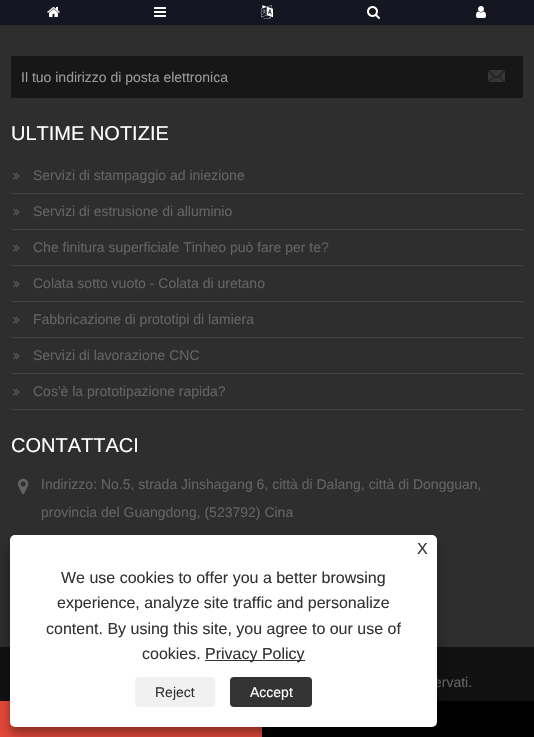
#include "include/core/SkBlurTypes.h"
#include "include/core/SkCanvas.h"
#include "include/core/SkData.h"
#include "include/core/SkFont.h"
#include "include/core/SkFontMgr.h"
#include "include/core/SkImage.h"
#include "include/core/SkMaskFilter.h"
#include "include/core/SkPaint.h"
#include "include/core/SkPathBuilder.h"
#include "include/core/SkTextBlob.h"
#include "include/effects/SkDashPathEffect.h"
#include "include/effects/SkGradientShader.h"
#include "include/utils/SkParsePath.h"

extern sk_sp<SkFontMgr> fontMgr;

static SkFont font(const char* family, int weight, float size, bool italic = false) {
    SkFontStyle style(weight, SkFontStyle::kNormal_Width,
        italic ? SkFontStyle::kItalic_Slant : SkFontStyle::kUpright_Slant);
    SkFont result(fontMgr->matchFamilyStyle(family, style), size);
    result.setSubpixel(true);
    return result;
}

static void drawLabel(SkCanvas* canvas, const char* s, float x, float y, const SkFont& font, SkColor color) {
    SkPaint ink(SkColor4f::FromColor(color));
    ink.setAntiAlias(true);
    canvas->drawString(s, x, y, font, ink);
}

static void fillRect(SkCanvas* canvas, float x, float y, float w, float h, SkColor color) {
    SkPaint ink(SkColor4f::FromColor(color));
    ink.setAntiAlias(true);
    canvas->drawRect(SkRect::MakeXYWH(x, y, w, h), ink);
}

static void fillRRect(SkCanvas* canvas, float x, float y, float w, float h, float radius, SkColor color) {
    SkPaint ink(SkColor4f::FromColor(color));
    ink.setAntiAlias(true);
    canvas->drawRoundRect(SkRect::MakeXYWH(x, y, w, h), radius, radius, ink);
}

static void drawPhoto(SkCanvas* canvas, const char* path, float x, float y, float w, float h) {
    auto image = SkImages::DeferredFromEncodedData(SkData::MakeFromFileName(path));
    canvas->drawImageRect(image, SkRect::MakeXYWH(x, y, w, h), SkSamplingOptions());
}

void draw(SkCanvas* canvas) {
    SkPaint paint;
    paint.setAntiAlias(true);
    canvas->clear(0xFF2E2E2E);
    fillRect(canvas, 0, 0, 534, 25, 0xFF161622);
    drawPhoto(canvas, "assets/img1.png", 47, 7, 13, 10);
    drawPhoto(canvas, "assets/img2.png", 154, 7, 12, 10);
    drawPhoto(canvas, "assets/img3.png", 261, 5, 12, 14);
    drawPhoto(canvas, "assets/img4.png", 367, 6, 13, 13);
    drawPhoto(canvas, "assets/img5.png", 476, 6, 10, 12);
    fillRect(canvas, 11, 56, 512, 42, 0xFF171717);
    SkFont font1 = font("Liberation Sans", 400, 14);
    drawLabel(canvas, "Il tuo indirizzo di posta elettronica", 21, 82, font1, 0xFF999999);
    drawPhoto(canvas, "assets/img6.png", 488, 70, 17, 12);
    SkFont font2 = font("Liberation Sans", 400, 20);
    drawLabel(canvas, "ULTIME NOTIZIE", 11, 140, font2, 0xFFFFFFFF);
    fillRect(canvas, 11, 193, 512, 1, 0xFF434343);
    drawPhoto(canvas, "assets/img7.png", 13, 173, 7, 7);
    drawLabel(canvas, "Servizi di stampaggio ad iniezione", 33, 180, font1, 0xFF636363);
    fillRect(canvas, 11, 229, 512, 1, 0xFF434343);
    drawPhoto(canvas, "assets/img7.png", 13, 209, 7, 7);
    drawLabel(canvas, "Servizi di estrusione di alluminio", 33, 216, font1, 0xFF636363);
    fillRect(canvas, 11, 265, 512, 1, 0xFF434343);
    drawPhoto(canvas, "assets/img7.png", 13, 245, 7, 7);
    drawLabel(canvas, "Che finitura superficiale Tinheo può fare per te?", 33, 252, font1, 0xFF636363);
    fillRect(canvas, 11, 301, 512, 1, 0xFF434343);
    drawPhoto(canvas, "assets/img7.png", 13, 281, 7, 7);
    drawLabel(canvas, "Colata sotto vuoto - Colata di uretano", 33, 288, font1, 0xFF636363);
    fillRect(canvas, 11, 337, 512, 1, 0xFF434343);
    drawPhoto(canvas, "assets/img7.png", 13, 317, 7, 7);
    drawLabel(canvas, "Fabbricazione di prototipi di lamiera", 33, 324, font1, 0xFF636363);
    fillRect(canvas, 11, 373, 512, 1, 0xFF434343);
    drawPhoto(canvas, "assets/img7.png", 13, 353, 7, 7);
    drawLabel(canvas, "Servizi di lavorazione CNC", 33, 360, font1, 0xFF636363);
    fillRect(canvas, 11, 409, 512, 1, 0xFF434343);
    drawPhoto(canvas, "assets/img7.png", 13, 389, 7, 7);
    drawLabel(canvas, "Cos'è la prototipazione rapida?", 33, 396, font1, 0xFF636363);
    drawLabel(canvas, "CONTATTACI", 11, 452, font2, 0xFFFFFFFF);
    drawPhoto(canvas, "assets/img8.png", 18, 478, 11, 17);
    drawLabel(canvas, "Indirizzo: No.5, strada Jinshagang 6, città di Dalang, città di Dongguan,", 41, 489, font1, 0xFF636363);
    drawLabel(canvas, "provincia del Guangdong, (523792) Cina", 41, 517, font1, 0xFF636363);
    fillRect(canvas, 0, 647, 534, 54, 0xFF111111);
    drawLabel(canvas, "ervati.", 434, 687, font1, 0xFF636363);
    fillRect(canvas, 262, 701, 272, 36, 0xFF000000);
    fillRect(canvas, 0, 701, 262, 36, 0xFFE5493A);
    paint.setColor(0x3B000000);
    paint.setMaskFilter(SkMaskFilter::MakeBlur(kNormal_SkBlurStyle, 3));
    canvas->drawRoundRect(SkRect::MakeXYWH(10, 541, 427, 192), 5, 5, paint);
    paint.setMaskFilter(nullptr);
    paint.setColor(0x30000000);
    paint.setMaskFilter(SkMaskFilter::MakeBlur(kNormal_SkBlurStyle, 10));
    canvas->drawRoundRect(SkRect::MakeXYWH(10, 545, 427, 192), 5, 5, paint);
    paint.setMaskFilter(nullptr);
    fillRRect(canvas, 10, 535, 427, 192, 5, 0xFFFFFFFF);
    SkFont font3 = font("Liberation Sans", 400, 16);
    drawLabel(canvas, "X", 417, 554, font3, 0xFF333333);
    drawLabel(canvas, "We use cookies to offer you a better browsing", 61, 583, font3, 0xFF333333);
    drawLabel(canvas, "experience, analyze site traffic and personalize", 57, 608, font3, 0xFF333333);
    drawLabel(canvas, "content. By using this site, you agree to our use of", 46, 634, font3, 0xFF333333);
    drawLabel(canvas, "cookies.", 142, 659, font3, 0xFF333333);
    fillRect(canvas, 205, 660, 100, 1, 0xFF333333);
    drawLabel(canvas, "Privacy Policy", 205, 659, font3, 0xFF333333);
    fillRRect(canvas, 135, 677, 80, 30, 4, 0xFFF1F1F1);
    drawLabel(canvas, "Reject", 155, 697, font1, 0xFF333333);
    fillRRect(canvas, 230, 677, 82, 30, 4, 0xFF333333);
    drawLabel(canvas, "Accept", 250, 697, font1, 0xFFFFFFFF);
}
